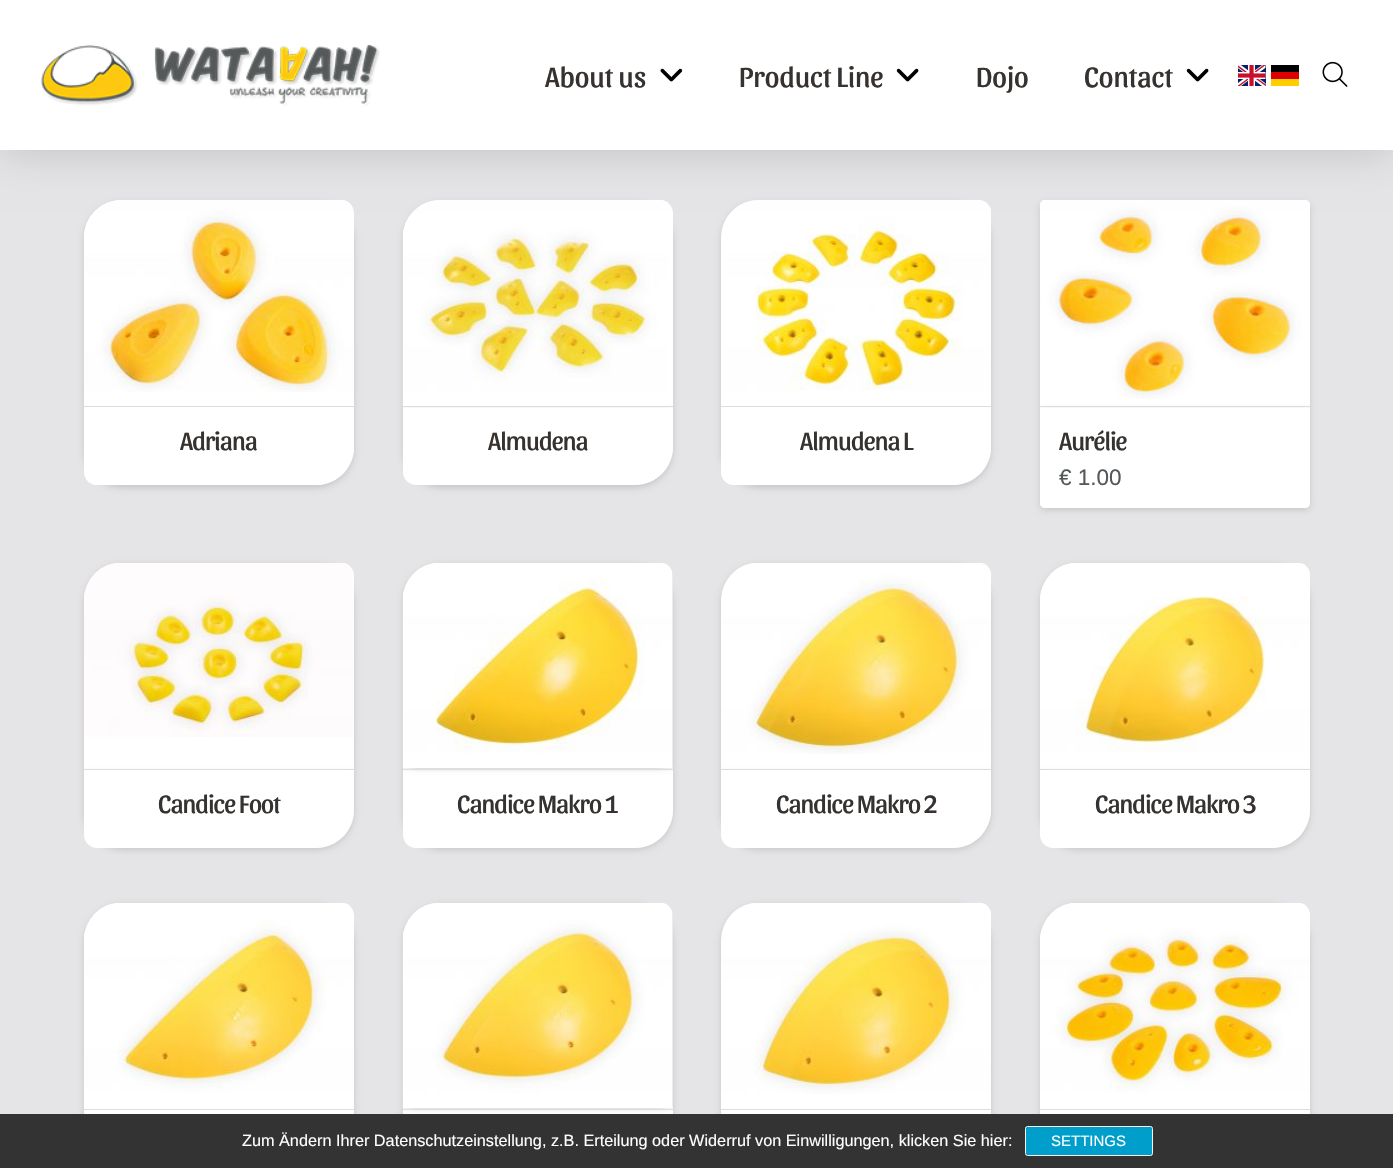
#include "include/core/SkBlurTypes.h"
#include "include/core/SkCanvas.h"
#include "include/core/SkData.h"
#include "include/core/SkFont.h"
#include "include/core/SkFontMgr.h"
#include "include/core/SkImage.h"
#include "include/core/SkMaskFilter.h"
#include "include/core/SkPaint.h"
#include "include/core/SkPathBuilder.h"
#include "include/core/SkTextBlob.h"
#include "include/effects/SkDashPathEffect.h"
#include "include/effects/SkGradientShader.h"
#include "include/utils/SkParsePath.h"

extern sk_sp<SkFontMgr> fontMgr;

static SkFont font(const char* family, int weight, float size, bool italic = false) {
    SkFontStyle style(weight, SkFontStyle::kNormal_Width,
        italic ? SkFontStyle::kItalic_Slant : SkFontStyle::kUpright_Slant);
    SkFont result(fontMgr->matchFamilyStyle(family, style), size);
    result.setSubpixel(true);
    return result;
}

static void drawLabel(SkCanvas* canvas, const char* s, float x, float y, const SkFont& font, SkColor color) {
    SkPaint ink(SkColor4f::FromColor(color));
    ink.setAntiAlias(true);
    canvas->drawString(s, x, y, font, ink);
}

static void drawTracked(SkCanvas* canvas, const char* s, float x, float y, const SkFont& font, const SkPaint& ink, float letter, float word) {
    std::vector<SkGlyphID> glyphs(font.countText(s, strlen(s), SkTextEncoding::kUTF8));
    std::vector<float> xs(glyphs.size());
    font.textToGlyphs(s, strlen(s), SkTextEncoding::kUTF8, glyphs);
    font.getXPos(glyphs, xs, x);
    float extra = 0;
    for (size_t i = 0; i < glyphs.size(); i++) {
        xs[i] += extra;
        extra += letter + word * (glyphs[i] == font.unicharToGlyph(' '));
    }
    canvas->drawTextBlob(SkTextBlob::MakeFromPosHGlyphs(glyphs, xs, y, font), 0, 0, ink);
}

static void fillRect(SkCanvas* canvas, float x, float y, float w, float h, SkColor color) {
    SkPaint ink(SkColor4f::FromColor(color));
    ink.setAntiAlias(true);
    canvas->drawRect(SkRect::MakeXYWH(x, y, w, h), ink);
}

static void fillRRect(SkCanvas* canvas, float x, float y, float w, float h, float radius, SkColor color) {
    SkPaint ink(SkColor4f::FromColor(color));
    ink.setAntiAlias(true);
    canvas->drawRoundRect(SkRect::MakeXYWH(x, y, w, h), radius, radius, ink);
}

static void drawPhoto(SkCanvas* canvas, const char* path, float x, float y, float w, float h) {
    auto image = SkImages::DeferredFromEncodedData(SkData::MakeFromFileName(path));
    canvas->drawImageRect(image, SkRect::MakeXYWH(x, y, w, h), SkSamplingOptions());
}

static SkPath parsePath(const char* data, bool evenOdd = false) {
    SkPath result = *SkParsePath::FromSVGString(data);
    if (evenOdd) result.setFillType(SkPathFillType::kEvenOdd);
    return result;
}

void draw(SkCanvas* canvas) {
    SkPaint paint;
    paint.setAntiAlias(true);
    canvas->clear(0xFFE5E4E6);
    paint.setColor(0x21000000);
    paint.setMaskFilter(SkMaskFilter::MakeBlur(kNormal_SkBlurStyle, 3));
    canvas->drawRoundRect(SkRect::MakeXYWH(84, 203, 270, 285), 38, 38, paint);
    paint.setMaskFilter(nullptr);
    paint.setColor(0xFFFFFFFF);
    canvas->drawPath(parsePath("M122 200H341C348 200 354 206 354 213V447C354 468 337 485 316 485H97C90 485 84 479 84 472V238C84 217 101 200 122 200Z"), paint);
    drawPhoto(canvas, "assets/img6.png", 84, 200, 269, 192);
    paint.setColor(0x21000000);
    paint.setMaskFilter(SkMaskFilter::MakeBlur(kNormal_SkBlurStyle, 3));
    canvas->drawRoundRect(SkRect::MakeXYWH(403, 203, 270, 285), 38, 38, paint);
    paint.setMaskFilter(nullptr);
    paint.setColor(0xFFFFFFFF);
    canvas->drawPath(parsePath("M441 200H660C667 200 673 206 673 213V447C673 468 656 485 635 485H416C409 485 403 479 403 472V238C403 217 420 200 441 200Z"), paint);
    canvas->save();
    canvas->clipPath(parsePath("M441 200H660C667 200 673 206 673 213V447C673 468 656 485 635 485H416C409 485 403 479 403 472V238C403 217 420 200 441 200Z"), true);
    paint.setColor(0x21000000);
    paint.setMaskFilter(SkMaskFilter::MakeBlur(kNormal_SkBlurStyle, 3));
    canvas->drawRoundRect(SkRect::MakeXYWH(403, 410, 270, 78), 5, 5, paint);
    paint.setMaskFilter(nullptr);
    canvas->restore();
    drawPhoto(canvas, "assets/img7.png", 402, 200, 266, 206);
    paint.setMaskFilter(SkMaskFilter::MakeBlur(kNormal_SkBlurStyle, 3));
    canvas->drawRoundRect(SkRect::MakeXYWH(721, 203, 270, 285), 38, 38, paint);
    paint.setMaskFilter(nullptr);
    paint.setColor(0xFFFFFFFF);
    canvas->drawPath(parsePath("M759 200H978C985 200 991 206 991 213V447C991 468 974 485 953 485H734C727 485 721 479 721 472V238C721 217 738 200 759 200Z"), paint);
    drawPhoto(canvas, "assets/img8.png", 723, 200, 268, 191);
    paint.setColor(0x21000000);
    paint.setMaskFilter(SkMaskFilter::MakeBlur(kNormal_SkBlurStyle, 3));
    canvas->drawRoundRect(SkRect::MakeXYWH(1040, 203, 270, 307), 5, 5, paint);
    paint.setMaskFilter(nullptr);
    fillRRect(canvas, 1040, 200, 270, 308, 5, 0xFFFFFFFF);
    drawPhoto(canvas, "assets/img9.png", 1040, 200, 270, 199);
    paint.setColor(0x26000000);
    paint.setMaskFilter(SkMaskFilter::MakeBlur(kNormal_SkBlurStyle, 20));
    canvas->drawRect(SkRect::MakeXYWH(0, 3, 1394, 150), paint);
    paint.setMaskFilter(nullptr);
    fillRect(canvas, 0, 0, 1393, 150, 0xFFFFFFFF);
    drawPhoto(canvas, "assets/img1.png", 41, 44, 339, 62);
    SkFont font1 = font("Sansita", 400, 29);
    drawLabel(canvas, "About us", 545, 87, font1, 0xFF363230);
    drawPhoto(canvas, "assets/img2.png", 660, 68, 23, 14);
    drawLabel(canvas, "Product Line", 739, 87, font1, 0xFF363230);
    drawPhoto(canvas, "assets/img3.png", 896, 68, 23, 14);
    drawLabel(canvas, "Dojo", 976, 87, font1, 0xFF363230);
    drawLabel(canvas, "Contact", 1084, 87, font1, 0xFF363230);
    drawPhoto(canvas, "assets/img3.png", 1186, 68, 23, 14);
    drawPhoto(canvas, "assets/img4.png", 1238, 65, 28, 21);
    fillRect(canvas, 1271, 79, 28, 7, 0xFFFFCE00);
    fillRect(canvas, 1271, 65, 28, 7, 0xFF000000);
    fillRect(canvas, 1271, 72, 28, 7, 0xFFDD0000);
    drawPhoto(canvas, "assets/img5.png", 1322, 61, 26, 26);
    fillRect(canvas, 84, 406, 270, 1, 0xFFDDDDDD);
    paint.setColor(0xFFFFFFFF);
    canvas->drawPath(parsePath("M84 408H354V447C354 468 337 485 316 485H97C90 485 84 479 84 472Z"), paint);
    SkFont font2 = font("Sansita", 400, 26);
    paint.setColor(0xFF363230);
    drawTracked(canvas, "Adriana", 180, 450, font2, paint, -0.9f, 0);
    fillRect(canvas, 403, 406, 270, 1, 0xFFDDDDDD);
    paint.setColor(0xFFFFFFFF);
    canvas->drawPath(parsePath("M403 408H673V447C673 468 656 485 635 485H416C409 485 403 479 403 472Z"), paint);
    paint.setColor(0xFF363230);
    drawTracked(canvas, "Almudena", 488, 450, font2, paint, -0.9f, 0);
    fillRect(canvas, 721, 406, 270, 1, 0xFFDDDDDD);
    paint.setColor(0xFFFFFFFF);
    canvas->drawPath(parsePath("M721 408H991V447C991 468 974 485 953 485H734C727 485 721 479 721 472Z"), paint);
    paint.setColor(0xFF363230);
    drawTracked(canvas, "Almudena L", 800, 450, font2, paint, -0.9f, 0);
    canvas->save();
    canvas->clipPath(parsePath("M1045 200H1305C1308 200 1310 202 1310 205V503C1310 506 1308 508 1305 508H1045C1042 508 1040 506 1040 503V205C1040 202 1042 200 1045 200Z"), true);
    paint.setColor(0x21000000);
    paint.setMaskFilter(SkMaskFilter::MakeBlur(kNormal_SkBlurStyle, 3));
    canvas->drawRoundRect(SkRect::MakeXYWH(1040, 410, 270, 100), 5, 5, paint);
    paint.setMaskFilter(nullptr);
    canvas->restore();
    fillRect(canvas, 1040, 406, 270, 1, 0xFFDDDDDD);
    paint.setColor(0xFFFFFFFF);
    canvas->drawPath(parsePath("M1040 408H1310V503C1310 506 1308 508 1305 508H1045C1042 508 1040 506 1040 503Z"), paint);
    paint.setColor(0xFF363230);
    drawTracked(canvas, "Aurélie", 1059, 450, font2, paint, -0.9f, 0);
    SkFont font3 = font("Liberation Sans", 400, 22.5f);
    drawLabel(canvas, "€ 1.00", 1059, 485, font3, 0xFF54585A);
    paint.setColor(0x21000000);
    paint.setMaskFilter(SkMaskFilter::MakeBlur(kNormal_SkBlurStyle, 3));
    canvas->drawRoundRect(SkRect::MakeXYWH(84, 565, 270, 285), 38, 38, paint);
    paint.setMaskFilter(nullptr);
    paint.setColor(0xFFFFFFFF);
    canvas->drawPath(parsePath("M122 563H341C348 563 354 569 354 576V810C354 831 337 848 316 848H97C90 848 84 842 84 835V601C84 580 101 563 122 563Z"), paint);
    canvas->save();
    canvas->clipPath(parsePath("M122 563H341C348 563 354 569 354 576V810C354 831 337 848 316 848H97C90 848 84 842 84 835V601C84 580 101 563 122 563Z"), true);
    paint.setColor(0x21000000);
    paint.setMaskFilter(SkMaskFilter::MakeBlur(kNormal_SkBlurStyle, 3));
    canvas->drawRoundRect(SkRect::MakeXYWH(84, 773, 270, 77), 5, 5, paint);
    paint.setMaskFilter(nullptr);
    canvas->restore();
    fillRect(canvas, 84, 769, 270, 1, 0xFFDDDDDD);
    drawPhoto(canvas, "assets/img10.png", 84, 563, 270, 174);
    paint.setColor(0xFFFFFFFF);
    canvas->drawPath(parsePath("M84 770H354V810C354 831 337 848 316 848H97C90 848 84 842 84 835Z"), paint);
    paint.setColor(0xFF363230);
    drawTracked(canvas, "Candice Foot", 158, 813, font2, paint, -0.9f, 0);
    paint.setColor(0x21000000);
    paint.setMaskFilter(SkMaskFilter::MakeBlur(kNormal_SkBlurStyle, 3));
    canvas->drawRoundRect(SkRect::MakeXYWH(403, 565, 270, 285), 38, 38, paint);
    paint.setMaskFilter(nullptr);
    paint.setColor(0xFFFFFFFF);
    canvas->drawPath(parsePath("M441 563H660C667 563 673 569 673 576V810C673 831 656 848 635 848H416C409 848 403 842 403 835V601C403 580 420 563 441 563Z"), paint);
    canvas->save();
    canvas->clipPath(parsePath("M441 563H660C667 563 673 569 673 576V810C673 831 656 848 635 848H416C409 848 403 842 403 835V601C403 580 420 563 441 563Z"), true);
    paint.setColor(0x21000000);
    paint.setMaskFilter(SkMaskFilter::MakeBlur(kNormal_SkBlurStyle, 3));
    canvas->drawRoundRect(SkRect::MakeXYWH(403, 773, 270, 77), 5, 5, paint);
    paint.setMaskFilter(nullptr);
    canvas->restore();
    paint.setColor(0xFFFFFFFF);
    canvas->drawPath(parsePath("M403 770H673V810C673 831 656 848 635 848H416C409 848 403 842 403 835Z"), paint);
    canvas->save();
    canvas->clipPath(parsePath("M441 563H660C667 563 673 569 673 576V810C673 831 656 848 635 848H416C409 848 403 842 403 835V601C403 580 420 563 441 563Z"), true);
    paint.setColor(0x21000000);
    paint.setMaskFilter(SkMaskFilter::MakeBlur(kNormal_SkBlurStyle, 2.5f));
    canvas->drawRect(SkRect::MakeXYWH(403, 570, 260, 198), paint);
    paint.setMaskFilter(nullptr);
    paint.setMaskFilter(SkMaskFilter::MakeBlur(kNormal_SkBlurStyle, 2.5f));
    canvas->drawRect(SkRect::MakeXYWH(413, 570, 260, 198), paint);
    paint.setMaskFilter(nullptr);
    canvas->restore();
    fillRect(canvas, 403, 769, 270, 1, 0xFFDDDDDD);
    drawPhoto(canvas, "assets/img11.png", 402, 563, 270, 205);
    paint.setColor(0xFF363230);
    drawTracked(canvas, "Candice Makro 1", 457, 813, font2, paint, -0.9f, 0);
    paint.setColor(0x21000000);
    paint.setMaskFilter(SkMaskFilter::MakeBlur(kNormal_SkBlurStyle, 3));
    canvas->drawRoundRect(SkRect::MakeXYWH(721, 565, 270, 285), 38, 38, paint);
    paint.setMaskFilter(nullptr);
    paint.setColor(0xFFFFFFFF);
    canvas->drawPath(parsePath("M759 563H978C985 563 991 569 991 576V810C991 831 974 848 953 848H734C727 848 721 842 721 835V601C721 580 738 563 759 563Z"), paint);
    canvas->save();
    canvas->clipPath(parsePath("M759 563H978C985 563 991 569 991 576V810C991 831 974 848 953 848H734C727 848 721 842 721 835V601C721 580 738 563 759 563Z"), true);
    paint.setColor(0x21000000);
    paint.setMaskFilter(SkMaskFilter::MakeBlur(kNormal_SkBlurStyle, 3));
    canvas->drawRoundRect(SkRect::MakeXYWH(721, 773, 270, 77), 5, 5, paint);
    paint.setMaskFilter(nullptr);
    canvas->restore();
    fillRect(canvas, 721, 769, 270, 1, 0xFFDDDDDD);
    drawPhoto(canvas, "assets/img12.png", 722, 563, 269, 191);
    paint.setColor(0xFFFFFFFF);
    canvas->drawPath(parsePath("M721 770H991V810C991 831 974 848 953 848H734C727 848 721 842 721 835Z"), paint);
    paint.setColor(0xFF363230);
    drawTracked(canvas, "Candice Makro 2", 776, 813, font2, paint, -0.9f, 0);
    paint.setColor(0x21000000);
    paint.setMaskFilter(SkMaskFilter::MakeBlur(kNormal_SkBlurStyle, 3));
    canvas->drawRoundRect(SkRect::MakeXYWH(1040, 565, 270, 285), 38, 38, paint);
    paint.setMaskFilter(nullptr);
    paint.setColor(0xFFFFFFFF);
    canvas->drawPath(parsePath("M1078 563H1297C1304 563 1310 569 1310 576V810C1310 831 1293 848 1272 848H1053C1046 848 1040 842 1040 835V601C1040 580 1057 563 1078 563Z"), paint);
    canvas->save();
    canvas->clipPath(parsePath("M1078 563H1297C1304 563 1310 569 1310 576V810C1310 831 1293 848 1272 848H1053C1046 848 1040 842 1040 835V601C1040 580 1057 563 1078 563Z"), true);
    paint.setColor(0x21000000);
    paint.setMaskFilter(SkMaskFilter::MakeBlur(kNormal_SkBlurStyle, 3));
    canvas->drawRoundRect(SkRect::MakeXYWH(1040, 773, 270, 77), 5, 5, paint);
    paint.setMaskFilter(nullptr);
    canvas->restore();
    fillRect(canvas, 1040, 769, 270, 1, 0xFFDDDDDD);
    drawPhoto(canvas, "assets/img13.png", 1040, 563, 270, 190);
    paint.setColor(0xFFFFFFFF);
    canvas->drawPath(parsePath("M1040 770H1310V810C1310 831 1293 848 1272 848H1053C1046 848 1040 842 1040 835Z"), paint);
    paint.setColor(0xFF363230);
    drawTracked(canvas, "Candice Makro 3", 1095, 813, font2, paint, -0.9f, 0);
    paint.setColor(0x21000000);
    paint.setMaskFilter(SkMaskFilter::MakeBlur(kNormal_SkBlurStyle, 3));
    canvas->drawRoundRect(SkRect::MakeXYWH(84, 905, 270, 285), 38, 38, paint);
    paint.setMaskFilter(nullptr);
    paint.setColor(0xFFFFFFFF);
    canvas->drawPath(parsePath("M122 903H341C348 903 354 909 354 916V1150C354 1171 337 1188 316 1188H97C90 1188 84 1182 84 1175V941C84 920 101 903 122 903Z"), paint);
    fillRect(canvas, 84, 1109, 270, 1, 0xFFDDDDDD);
    drawPhoto(canvas, "assets/img14.png", 84, 903, 270, 190);
    paint.setColor(0x21000000);
    paint.setMaskFilter(SkMaskFilter::MakeBlur(kNormal_SkBlurStyle, 3));
    canvas->drawRoundRect(SkRect::MakeXYWH(403, 905, 270, 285), 38, 38, paint);
    paint.setMaskFilter(nullptr);
    paint.setColor(0xFFFFFFFF);
    canvas->drawPath(parsePath("M441 903H660C667 903 673 909 673 916V1150C673 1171 656 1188 635 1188H416C409 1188 403 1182 403 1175V941C403 920 420 903 441 903Z"), paint);
    canvas->save();
    canvas->clipPath(parsePath("M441 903H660C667 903 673 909 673 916V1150C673 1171 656 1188 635 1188H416C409 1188 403 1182 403 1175V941C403 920 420 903 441 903Z"), true);
    paint.setColor(0x21000000);
    paint.setMaskFilter(SkMaskFilter::MakeBlur(kNormal_SkBlurStyle, 2.5f));
    canvas->drawRect(SkRect::MakeXYWH(403, 910, 260, 198), paint);
    paint.setMaskFilter(nullptr);
    paint.setMaskFilter(SkMaskFilter::MakeBlur(kNormal_SkBlurStyle, 2.5f));
    canvas->drawRect(SkRect::MakeXYWH(413, 910, 260, 198), paint);
    paint.setMaskFilter(nullptr);
    canvas->restore();
    fillRect(canvas, 403, 1109, 270, 1, 0xFFDDDDDD);
    drawPhoto(canvas, "assets/img15.png", 402, 903, 270, 205);
    paint.setMaskFilter(SkMaskFilter::MakeBlur(kNormal_SkBlurStyle, 3));
    canvas->drawRoundRect(SkRect::MakeXYWH(721, 905, 270, 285), 38, 38, paint);
    paint.setMaskFilter(nullptr);
    paint.setColor(0xFFFFFFFF);
    canvas->drawPath(parsePath("M759 903H978C985 903 991 909 991 916V1150C991 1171 974 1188 953 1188H734C727 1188 721 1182 721 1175V941C721 920 738 903 759 903Z"), paint);
    fillRect(canvas, 721, 1109, 270, 1, 0xFFDDDDDD);
    drawPhoto(canvas, "assets/img16.png", 722, 903, 269, 191);
    paint.setColor(0x21000000);
    paint.setMaskFilter(SkMaskFilter::MakeBlur(kNormal_SkBlurStyle, 3));
    canvas->drawRoundRect(SkRect::MakeXYWH(1040, 905, 270, 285), 38, 38, paint);
    paint.setMaskFilter(nullptr);
    paint.setColor(0xFFFFFFFF);
    canvas->drawPath(parsePath("M1078 903H1297C1304 903 1310 909 1310 916V1150C1310 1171 1293 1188 1272 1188H1053C1046 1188 1040 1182 1040 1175V941C1040 920 1057 903 1078 903Z"), paint);
    fillRect(canvas, 1040, 1109, 270, 1, 0xFFDDDDDD);
    drawPhoto(canvas, "assets/img17.png", 1040, 903, 270, 190);
    fillRect(canvas, 0, 1114, 1393, 54, 0xFF333333);
    SkFont font4 = font("Liberation Sans", 400, 16.25f);
    drawLabel(canvas, "Zum Ändern Ihrer Datenschutzeinstellung, z.B. Erteilung oder Widerruf von Einwilligungen, klicken Sie hier:", 242, 1146, font4, 0xFFFFFFFF);
    paint.setColor(0xFF009ECB);
    canvas->drawRoundRect(SkRect::MakeXYWH(1025.5f, 1126.5f, 127, 29), 2, 2, paint);
    paint.setStroke(true);
    paint.setStrokeWidth(1);
    paint.setColor(0xFFF3F3F3);
    canvas->drawRoundRect(SkRect::MakeXYWH(1025.5f, 1126.5f, 127, 29), 2, 2, paint);
    SkFont font5 = font("Liberation Sans", 400, 15);
    drawLabel(canvas, "SETTINGS", 1051, 1146, font5, 0xFFFFFFFF);
}
